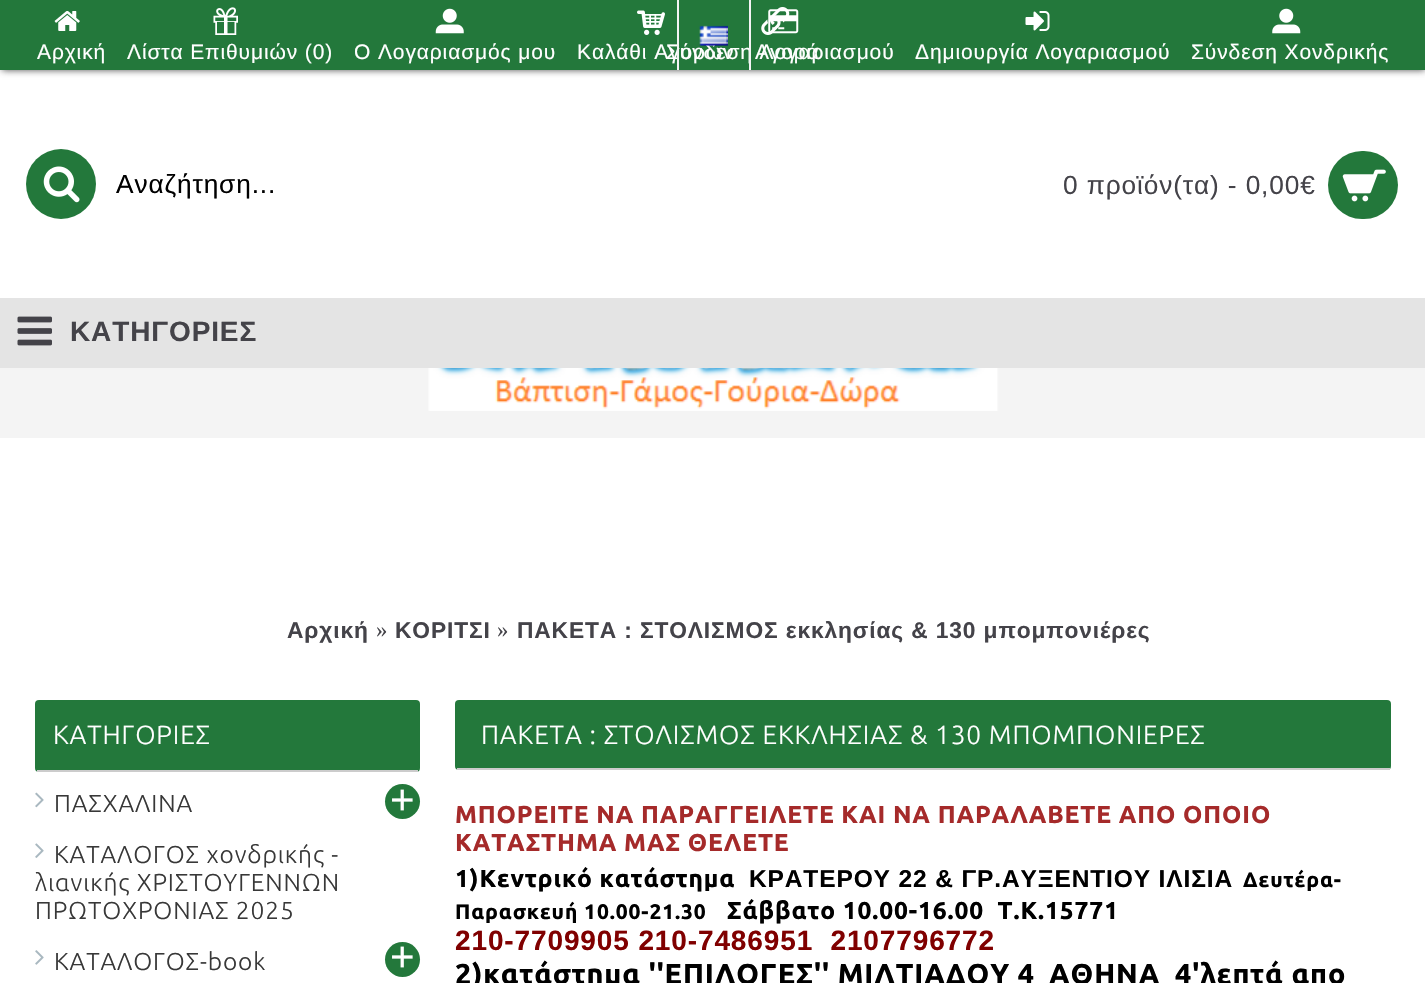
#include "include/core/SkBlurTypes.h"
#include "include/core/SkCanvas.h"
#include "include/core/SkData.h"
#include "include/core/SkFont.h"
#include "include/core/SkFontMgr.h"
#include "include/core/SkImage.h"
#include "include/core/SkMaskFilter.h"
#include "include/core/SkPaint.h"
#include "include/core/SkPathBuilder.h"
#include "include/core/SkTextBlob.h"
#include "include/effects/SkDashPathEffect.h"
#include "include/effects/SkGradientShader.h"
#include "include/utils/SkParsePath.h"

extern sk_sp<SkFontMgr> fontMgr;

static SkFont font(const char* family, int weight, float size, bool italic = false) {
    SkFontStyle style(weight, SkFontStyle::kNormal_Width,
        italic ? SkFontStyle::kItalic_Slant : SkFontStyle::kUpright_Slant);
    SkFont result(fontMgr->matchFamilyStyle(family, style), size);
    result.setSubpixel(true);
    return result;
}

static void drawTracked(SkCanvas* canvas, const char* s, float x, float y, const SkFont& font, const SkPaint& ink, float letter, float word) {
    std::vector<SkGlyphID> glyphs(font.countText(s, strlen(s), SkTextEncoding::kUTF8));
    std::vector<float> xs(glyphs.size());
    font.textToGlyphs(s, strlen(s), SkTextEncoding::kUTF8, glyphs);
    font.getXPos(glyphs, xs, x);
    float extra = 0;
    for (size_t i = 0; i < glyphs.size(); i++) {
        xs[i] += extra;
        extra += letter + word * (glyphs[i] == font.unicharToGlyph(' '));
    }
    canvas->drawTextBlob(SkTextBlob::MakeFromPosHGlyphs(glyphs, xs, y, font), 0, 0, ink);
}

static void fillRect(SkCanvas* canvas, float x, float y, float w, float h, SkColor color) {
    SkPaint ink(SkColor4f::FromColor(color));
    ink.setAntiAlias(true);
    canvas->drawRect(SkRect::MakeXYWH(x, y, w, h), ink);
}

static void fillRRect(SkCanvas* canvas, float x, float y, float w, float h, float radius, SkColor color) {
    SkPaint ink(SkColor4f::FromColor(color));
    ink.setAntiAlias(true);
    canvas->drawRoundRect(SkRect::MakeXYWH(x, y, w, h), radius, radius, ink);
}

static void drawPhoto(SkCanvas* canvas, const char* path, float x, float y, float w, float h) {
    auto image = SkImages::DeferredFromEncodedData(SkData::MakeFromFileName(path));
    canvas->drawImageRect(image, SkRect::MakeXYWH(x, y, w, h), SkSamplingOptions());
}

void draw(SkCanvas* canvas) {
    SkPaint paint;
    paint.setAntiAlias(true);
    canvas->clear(0xFFFFFFFF);
    drawPhoto(canvas, "assets/img1.png", 0, 70, 1425, 228);
    fillRect(canvas, 0, 70, 1425, 228, 0xFCFFFFFF);
    paint.setColor(0xB3000000);
    paint.setMaskFilter(SkMaskFilter::MakeBlur(kNormal_SkBlurStyle, 3.5f));
    canvas->drawRect(SkRect::MakeXYWH(2, 4, 1423, 66), paint);
    paint.setMaskFilter(nullptr);
    fillRect(canvas, 0, 0, 1425, 70, 0xFF23783B);
    SkFont font1 = font("Liberation Sans", 400, 21);
    paint.setColor(0xFFFFFFFF);
    drawTracked(canvas, "Καλάθι Αγορών", 577, 59, font1, paint, 0.88f, 0);
    drawTracked(canvas, "Αγορά", 755, 59, font1, paint, 0.88f, 0);
    drawTracked(canvas, "Σύνδεση Λογαριασμού", 666, 59, font1, paint, 0.88f, 0);
    fillRect(canvas, 749, 0, 2, 70, 0xFFF4F4F4);
    fillRect(canvas, 677, 0, 2, 70, 0xFFF4F4F4);
    drawPhoto(canvas, "assets/img2.png", 699, 25, 29, 21);
    drawPhoto(canvas, "assets/img3.png", 54, 11, 26, 20);
    drawTracked(canvas, "Αρχική", 37, 59, font1, paint, 0.88f, 0);
    drawPhoto(canvas, "assets/img4.png", 213, 7, 25, 28);
    drawTracked(canvas, "Λίστα Επιθυμιών (0)", 127, 59, font1, paint, 0.88f, 0);
    drawPhoto(canvas, "assets/img5.png", 435, 8, 29, 26);
    drawTracked(canvas, "O Λογαριασμός μου", 354, 59, font1, paint, 0.88f, 0);
    drawPhoto(canvas, "assets/img6.png", 637, 10, 28, 25);
    drawPhoto(canvas, "assets/img7.png", 768, 9, 31, 25);
    drawPhoto(canvas, "assets/img8.png", 761, 7, 29, 28);
    drawPhoto(canvas, "assets/img9.png", 1025, 11, 25, 20);
    drawTracked(canvas, "Δημιουργία Λογαριασμού", 915, 59, font1, paint, 0.88f, 0);
    drawPhoto(canvas, "assets/img10.png", 1272, 8, 29, 26);
    drawTracked(canvas, "Σύνδεση Χονδρικής", 1191, 59, font1, paint, 0.88f, 0);
    paint.setColor(0xFF23783B);
    canvas->drawCircle(61, 184, 35, paint);
    drawPhoto(canvas, "assets/img11.png", 43, 166, 37, 37);
    SkFont font2 = font("Liberation Sans", 400, 26.25f);
    paint.setColor(0xFF000000);
    drawTracked(canvas, "Αναζήτηση...", 116, 193, font2, paint, 0.88f, 0);
    paint.setColor(0xFF444349);
    drawTracked(canvas, "0 προϊόν(τα) - 0,00€", 1063, 194, font2, paint, 0.88f, 0);
    fillRRect(canvas, 1328, 151, 70, 68, 34, 0xFF23783B);
    drawPhoto(canvas, "assets/img12.png", 1342, 169, 44, 33);
    fillRect(canvas, 0, 298, 1425, 70, 0xFFE4E4E4);
    drawPhoto(canvas, "assets/img13.png", 17, 316, 35, 30);
    SkFont font3 = font("Liberation Sans", 700, 28);
    drawTracked(canvas, "ΚΑΤΗΓΟΡΙΕΣ", 70, 341, font3, paint, 0.88f, 0);
    fillRect(canvas, 0, 368, 1425, 70, 0xFFF4F4F4);
    drawPhoto(canvas, "assets/img14.png", 428, 368, 571, 43);
    SkFont font4 = font("Liberation Sans", 700, 22.75f);
    drawTracked(canvas, "Αρχική", 287, 638, font4, paint, 0.88f, 0);
    SkFont font5 = font("Liberation Serif", 400, 22.75f);
    drawTracked(canvas, "»", 376, 637, font5, paint, 0.88f, 0);
    drawTracked(canvas, "ΚΟΡΙΤΣΙ", 395, 638, font4, paint, 0.88f, 0);
    drawTracked(canvas, "»", 497, 637, font5, paint, 0.88f, 0);
    drawTracked(canvas, "ΠΑΚΕΤΑ : ΣΤΟΛΙΣΜΟΣ εκκλησίας & 130 μπομπονιέρες", 517, 638, font4, paint, 0.88f, 0);
    fillRRect(canvas, 35, 700, 385, 72, 4, 0xFF23783B);
    fillRect(canvas, 37, 770, 381, 2, 0xFFCCCCCC);
    SkFont font6 = font("Ubuntu", 300, 26.25f);
    paint.setColor(0xFFFFFFFF);
    drawTracked(canvas, "ΚΑΤΗΓΟΡΙΕΣ", 53, 744, font6, paint, 0.88f, 0);
    drawPhoto(canvas, "assets/img15.png", 35, 792, 9, 16);
    SkFont font7 = font("Ubuntu", 300, 24.5f);
    paint.setColor(0xFF383838);
    drawTracked(canvas, "ΠΑΣΧΑΛΙΝΑ", 54, 812, font7, paint, 0.88f, 0);
    paint.setColor(0xFF23783B);
    canvas->drawCircle(402.5f, 801.5f, 17.5f, paint);
    SkFont font8 = font("Liberation Sans", 400, 42);
    paint.setColor(0xFFFFFFFF);
    drawTracked(canvas, "+", 390, 814, font8, paint, 0.88f, 0);
    drawPhoto(canvas, "assets/img16.png", 35, 843, 9, 15);
    paint.setColor(0xFF383838);
    drawTracked(canvas, "ΚΑΤΑΛΟΓΟΣ χονδρικής -", 54, 863, font7, paint, 0.88f, 0);
    drawTracked(canvas, "λιανικής ΧΡΙΣΤΟΥΓΕΝΝΩΝ", 35, 891, font7, paint, 0.88f, 0);
    drawTracked(canvas, "ΠΡΩΤΟΧΡΟΝΙΑΣ 2025", 35, 919, font7, paint, 0.88f, 0);
    drawPhoto(canvas, "assets/img17.png", 35, 950, 9, 15);
    drawTracked(canvas, "ΚΑΤΑΛΟΓΟΣ-book", 54, 970, font7, paint, 0.88f, 0);
    paint.setColor(0xFF23783B);
    canvas->drawCircle(402.5f, 959.5f, 17.5f, paint);
    paint.setColor(0xFFFFFFFF);
    drawTracked(canvas, "+", 390, 971, font8, paint, 0.88f, 0);
    fillRRect(canvas, 455, 700, 936, 70, 4, 0xFF23783B);
    fillRect(canvas, 457, 768, 933, 2, 0xFFCCCCCC);
    drawTracked(canvas, "ΠΑΚΕΤΑ : ΣΤΟΛΙΣΜΟΣ ΕΚΚΛΗΣΙΑΣ & 130 ΜΠΟΜΠΟΝΙΕΡΕΣ", 481, 744, font6, paint, 0.88f, 0);
    SkFont font9 = font("Ubuntu", 700, 24.5f);
    paint.setColor(0xFFA52A2A);
    drawTracked(canvas, "ΜΠΟΡΕΙΤΕ ΝΑ ΠΑΡΑΓΓΕΙΛΕΤΕ ΚΑΙ ΝΑ ΠΑΡΑΛΑΒΕΤΕ ΑΠΟ ΟΠΟΙΟ", 455, 823, font9, paint, 0.88f, 0);
    drawTracked(canvas, "ΚΑΤΑΣΤΗΜΑ ΜΑΣ ΘΕΛΕΤΕ", 455, 851, font9, paint, 0.88f, 0);
    paint.setColor(0xFF000000);
    drawTracked(canvas, "1)Κεντρικό κατάστημα", 455, 887, font9, paint, 0.88f, 0);
    SkFont font10 = font("Liberation Sans", 700, 24.5f);
    drawTracked(canvas, "ΚΡΑΤΕΡΟΥ 22 & ΓΡ.ΑΥΞΕΝΤΙΟΥ ΙΛΙΣΙΑ", 749, 887, font10, paint, 0.88f, 0);
    SkFont font11 = font("Ubuntu", 700, 21);
    drawTracked(canvas, "Δευτέρα-", 1243, 887, font11, paint, 0.88f, 0);
    drawTracked(canvas, "Παρασκευή 10.00-21.30", 455, 919, font11, paint, 0.88f, 0);
    drawTracked(canvas, "Σάββατο 10.00-16.00  Τ.Κ.15771", 727, 919, font9, paint, 0.88f, 0);
    paint.setColor(0xFF800000);
    drawTracked(canvas, "210-7709905 210-7486951  2107796772", 455, 950, font3, paint, 0.88f, 0);
    SkFont font12 = font("Ubuntu", 700, 28.7f);
    paint.setColor(0xFF000000);
    drawTracked(canvas, "2)κατάστημα ''ΕΠΙΛΟΓΕΣ'' ΜΙΛΤΙΑΔΟΥ 4", 455, 984, font12, paint, 0.88f, 0);
    drawTracked(canvas, "ΑΘΗΝΑ", 1049, 984, font12, paint, 0.88f, 0);
    drawTracked(canvas, "4'λεπτά απο", 1175, 984, font12, paint, 0.88f, 0);
}
